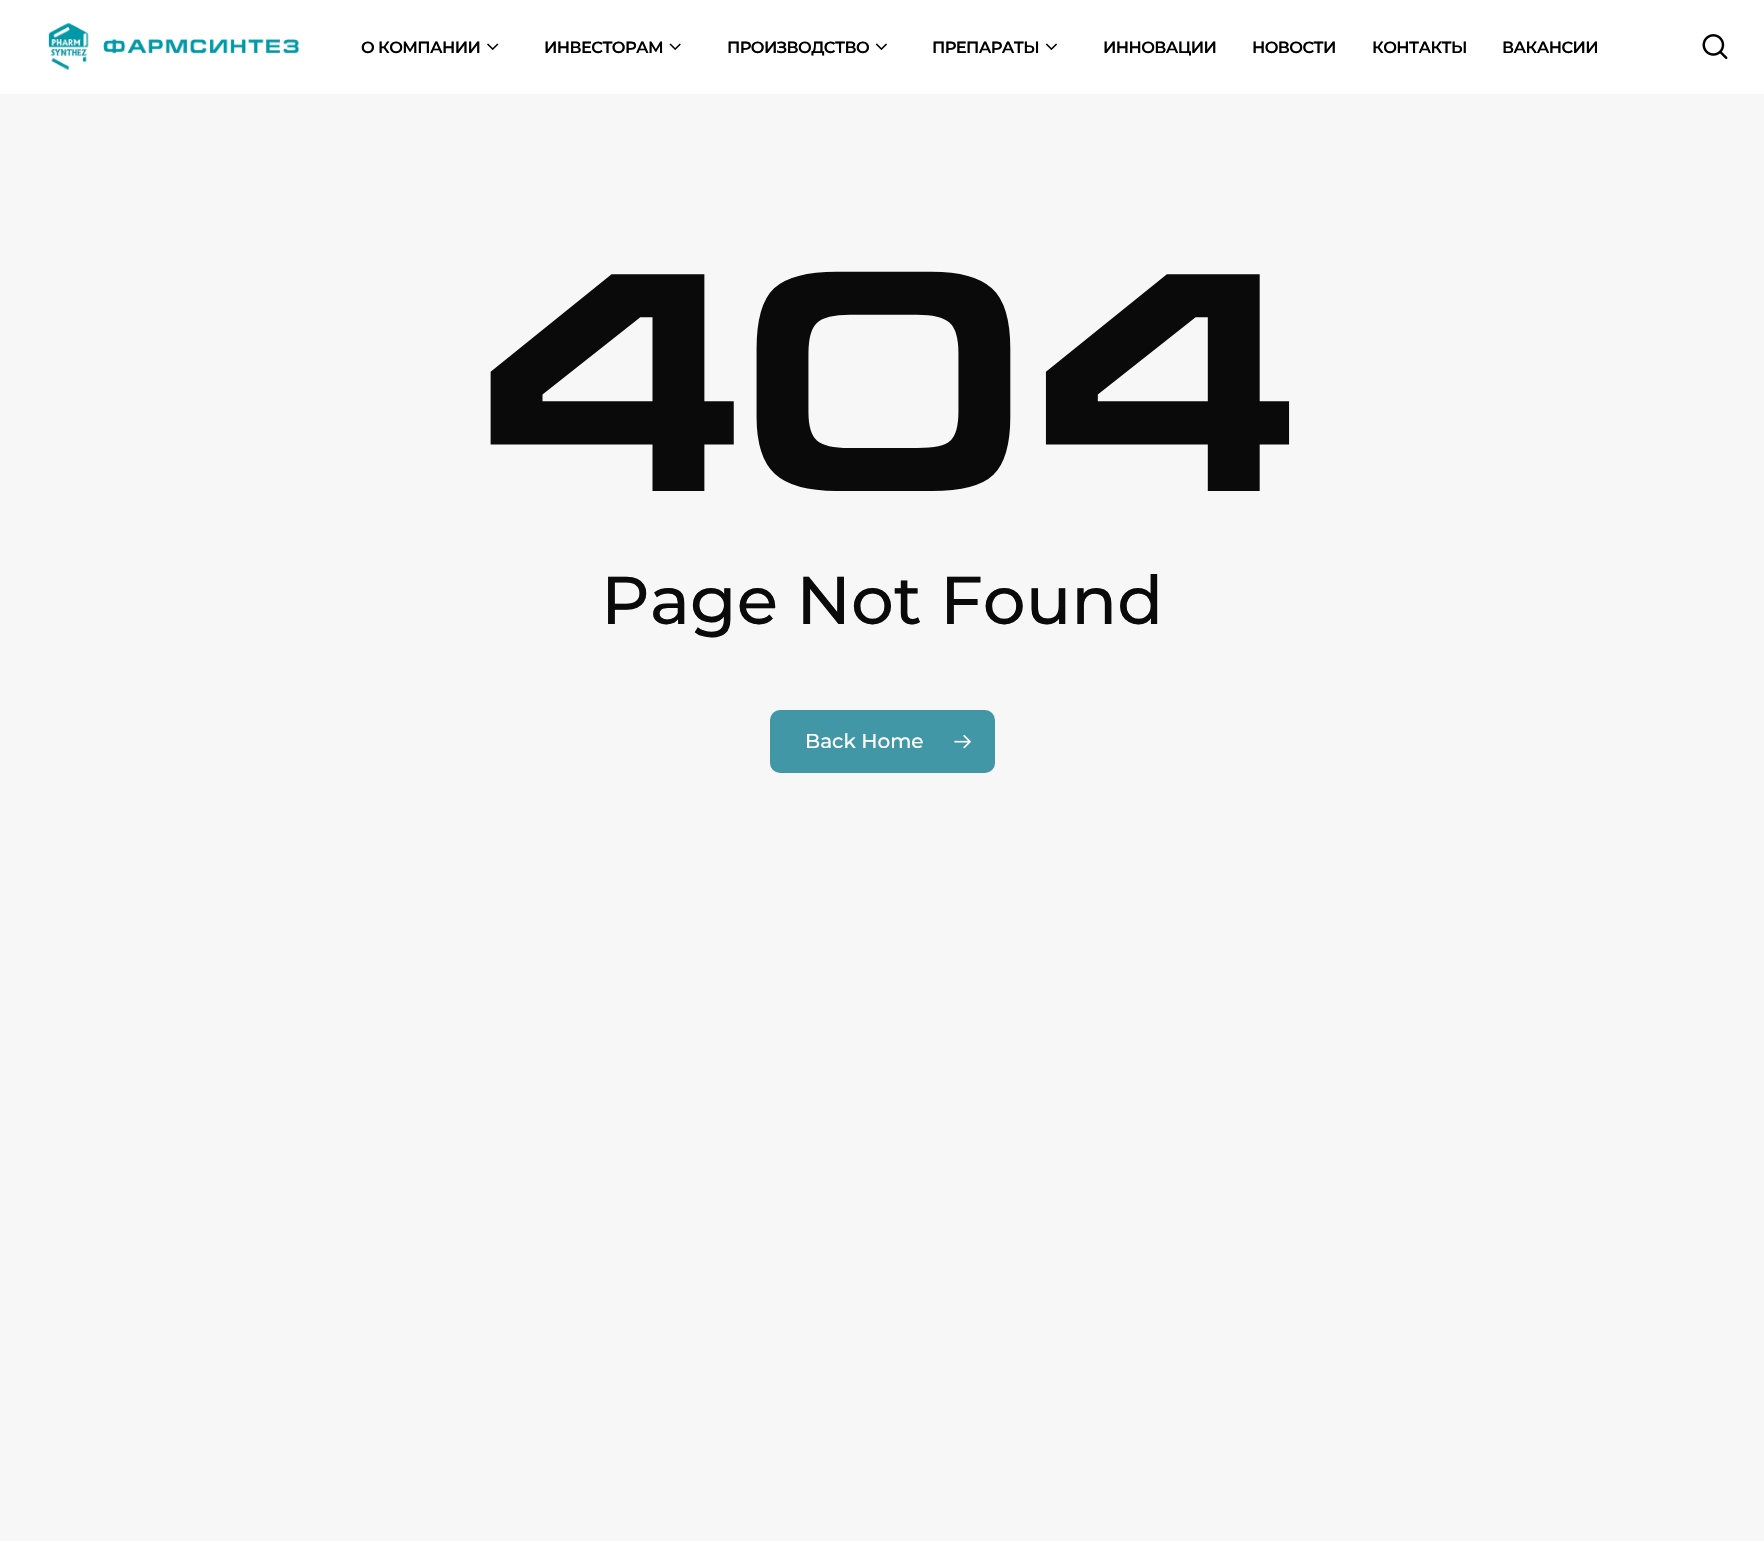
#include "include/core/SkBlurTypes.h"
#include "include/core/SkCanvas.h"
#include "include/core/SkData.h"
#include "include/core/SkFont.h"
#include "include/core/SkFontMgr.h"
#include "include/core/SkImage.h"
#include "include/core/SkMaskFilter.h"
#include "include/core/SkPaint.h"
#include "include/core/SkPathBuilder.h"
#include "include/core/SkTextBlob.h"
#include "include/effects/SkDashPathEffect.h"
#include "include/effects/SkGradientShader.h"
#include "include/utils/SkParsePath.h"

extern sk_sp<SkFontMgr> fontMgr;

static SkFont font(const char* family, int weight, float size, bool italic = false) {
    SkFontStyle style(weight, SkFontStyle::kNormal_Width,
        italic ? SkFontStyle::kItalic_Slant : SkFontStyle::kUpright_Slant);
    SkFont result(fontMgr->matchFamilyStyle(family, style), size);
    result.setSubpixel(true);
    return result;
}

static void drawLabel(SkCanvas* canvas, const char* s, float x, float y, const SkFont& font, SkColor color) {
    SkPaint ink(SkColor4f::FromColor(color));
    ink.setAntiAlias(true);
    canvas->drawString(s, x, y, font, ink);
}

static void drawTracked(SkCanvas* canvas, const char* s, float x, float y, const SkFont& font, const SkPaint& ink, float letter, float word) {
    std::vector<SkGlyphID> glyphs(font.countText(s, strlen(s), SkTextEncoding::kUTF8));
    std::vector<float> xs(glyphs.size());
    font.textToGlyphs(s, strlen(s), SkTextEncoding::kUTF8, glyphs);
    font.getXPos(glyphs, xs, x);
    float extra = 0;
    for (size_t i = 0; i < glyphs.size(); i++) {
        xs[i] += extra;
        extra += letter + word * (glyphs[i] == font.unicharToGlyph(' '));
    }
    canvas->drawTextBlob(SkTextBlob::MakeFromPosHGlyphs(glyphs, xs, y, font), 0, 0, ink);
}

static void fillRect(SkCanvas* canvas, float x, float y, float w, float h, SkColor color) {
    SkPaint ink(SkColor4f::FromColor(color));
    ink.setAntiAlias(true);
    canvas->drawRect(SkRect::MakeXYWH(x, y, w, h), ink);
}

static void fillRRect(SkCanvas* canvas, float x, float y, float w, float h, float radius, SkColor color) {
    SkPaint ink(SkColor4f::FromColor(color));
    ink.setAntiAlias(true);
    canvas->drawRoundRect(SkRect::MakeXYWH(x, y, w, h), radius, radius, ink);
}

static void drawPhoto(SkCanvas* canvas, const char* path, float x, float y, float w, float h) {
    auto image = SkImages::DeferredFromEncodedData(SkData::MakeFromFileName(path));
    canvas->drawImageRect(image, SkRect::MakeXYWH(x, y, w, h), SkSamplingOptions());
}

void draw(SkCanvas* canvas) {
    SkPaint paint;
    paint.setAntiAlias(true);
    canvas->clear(0xFFF7F7F7);
    fillRect(canvas, 0, 0, 1764, 94, 0xFFFFFFFF);
    drawPhoto(canvas, "assets/img1.png", 48, 22, 252, 49);
    SkFont font1 = font("Montserrat", 600, 16.25f);
    paint.setColor(0xFF000000);
    drawTracked(canvas, "О КОМПАНИИ", 361, 53, font1, paint, -0.6f, 0);
    drawPhoto(canvas, "assets/img2.png", 487, 43, 12, 7);
    drawTracked(canvas, "ИНВЕСТОРАМ", 544, 53, font1, paint, -0.6f, 0);
    drawPhoto(canvas, "assets/img3.png", 669, 43, 12, 7);
    drawTracked(canvas, "ПРОИЗВОДСТВО", 727, 53, font1, paint, -0.6f, 0);
    drawPhoto(canvas, "assets/img4.png", 875, 43, 12, 7);
    drawTracked(canvas, "ПРЕПАРАТЫ", 932, 53, font1, paint, -0.6f, 0);
    drawPhoto(canvas, "assets/img4.png", 1045, 43, 12, 7);
    drawTracked(canvas, "ИННОВАЦИИ", 1103, 53, font1, paint, -0.6f, 0);
    drawTracked(canvas, "НОВОСТИ", 1252, 53, font1, paint, -0.6f, 0);
    drawTracked(canvas, "КОНТАКТЫ", 1372, 53, font1, paint, -0.6f, 0);
    drawTracked(canvas, "ВАКАНСИИ", 1502, 53, font1, paint, -0.6f, 0);
    drawPhoto(canvas, "assets/img5.png", 1702, 34, 26, 25);
    SkFont font2 = font("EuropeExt", 700, 312.5f);
    drawLabel(canvas, "404", 470, 491, font2, 0xFF0A0A0A);
    SkFont font3 = font("Montserrat", 500, 67.5f);
    drawLabel(canvas, "Page Not Found", 601, 624, font3, 0xFF0A0A0A);
    fillRRect(canvas, 770, 710, 225, 63, 10, 0xFF4197A6);
    SkFont font4 = font("Montserrat", 500, 20);
    drawLabel(canvas, "Back Home", 805, 748, font4, 0xFFFFFFFF);
    drawPhoto(canvas, "assets/img6.png", 954, 735, 17, 14);
}
